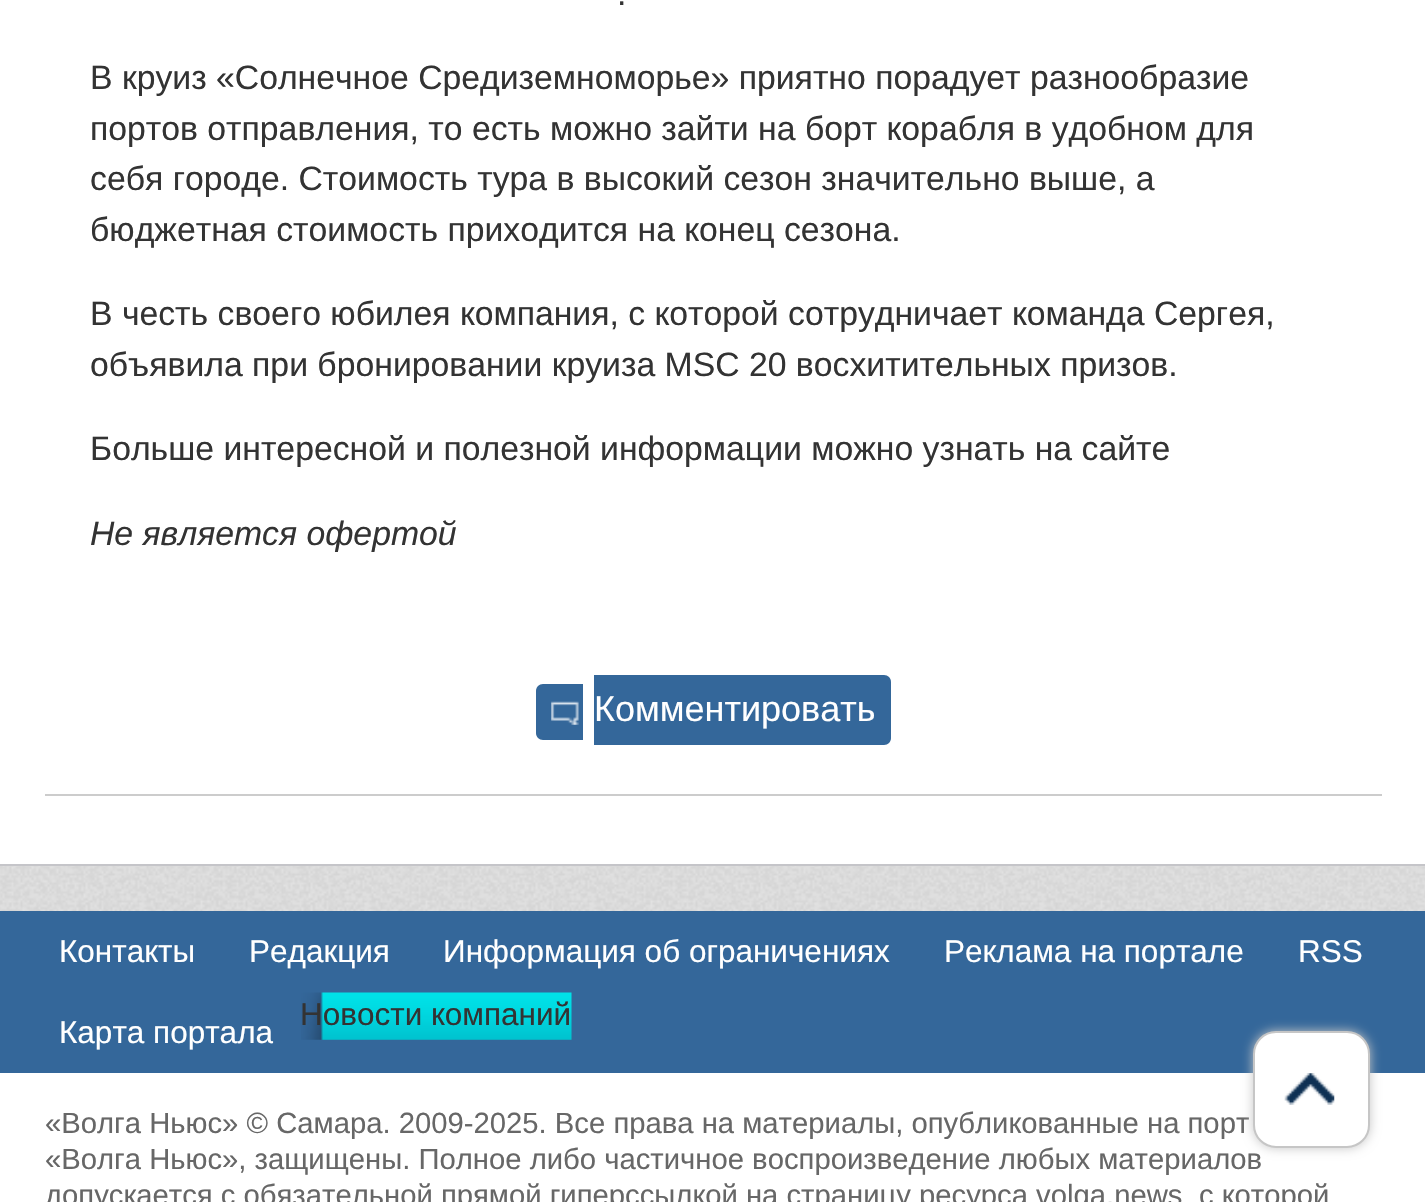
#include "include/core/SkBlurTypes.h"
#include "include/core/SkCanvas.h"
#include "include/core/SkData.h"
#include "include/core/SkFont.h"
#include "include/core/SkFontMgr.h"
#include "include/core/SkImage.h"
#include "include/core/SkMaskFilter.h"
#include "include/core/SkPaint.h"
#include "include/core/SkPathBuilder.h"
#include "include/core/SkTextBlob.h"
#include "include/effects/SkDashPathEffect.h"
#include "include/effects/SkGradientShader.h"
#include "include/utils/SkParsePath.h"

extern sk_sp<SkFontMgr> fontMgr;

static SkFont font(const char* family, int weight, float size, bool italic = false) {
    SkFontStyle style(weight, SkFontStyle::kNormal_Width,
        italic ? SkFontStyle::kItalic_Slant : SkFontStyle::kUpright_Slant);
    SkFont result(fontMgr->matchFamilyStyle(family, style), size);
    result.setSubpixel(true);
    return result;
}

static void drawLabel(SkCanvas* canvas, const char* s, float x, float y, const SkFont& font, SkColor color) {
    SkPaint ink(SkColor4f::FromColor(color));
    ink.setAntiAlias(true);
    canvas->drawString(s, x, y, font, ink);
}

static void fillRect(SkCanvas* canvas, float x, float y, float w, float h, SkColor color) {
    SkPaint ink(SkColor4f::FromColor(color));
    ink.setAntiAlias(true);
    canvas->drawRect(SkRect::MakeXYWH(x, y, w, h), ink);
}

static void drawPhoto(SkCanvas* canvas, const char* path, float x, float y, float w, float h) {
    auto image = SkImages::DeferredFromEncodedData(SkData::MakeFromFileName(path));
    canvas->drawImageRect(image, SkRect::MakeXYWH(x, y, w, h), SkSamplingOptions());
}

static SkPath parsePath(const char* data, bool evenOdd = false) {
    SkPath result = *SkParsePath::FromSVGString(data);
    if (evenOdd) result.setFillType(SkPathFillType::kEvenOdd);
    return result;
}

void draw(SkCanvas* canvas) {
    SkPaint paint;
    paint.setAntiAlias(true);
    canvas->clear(0xFFFFFFFF);
    drawPhoto(canvas, "assets/img1.png", 0, 866, 1425, 45);
    fillRect(canvas, 0, 864, 1425, 2, 0xFFC5C5C9);
    SkFont font1 = font("Liberation Sans", 400, 33.75f);
    drawLabel(canvas, ".", 617, 5, font1, 0xFF333333);
    drawLabel(canvas, "В круиз «Солнечное Средиземноморье» приятно порадует разнообразие", 90, 89, font1, 0xFF333333);
    drawLabel(canvas, "портов отправления, то есть можно зайти на борт корабля в удобном для", 90, 140, font1, 0xFF333333);
    drawLabel(canvas, "себя городе. Стоимость тура в высокий сезон значительно выше, а", 90, 190, font1, 0xFF333333);
    drawLabel(canvas, "бюджетная стоимость приходится на конец сезона.", 90, 241, font1, 0xFF333333);
    drawLabel(canvas, "В честь своего юбилея компания, с которой сотрудничает команда Сергея,", 90, 325, font1, 0xFF333333);
    drawLabel(canvas, "объявила при бронировании круиза MSC 20 восхитительных призов.", 90, 376, font1, 0xFF333333);
    drawLabel(canvas, "Больше интересной и полезной информации можно узнать на сайте", 90, 460, font1, 0xFF333333);
    SkFont font2 = font("Liberation Sans", 400, 33.75f, true);
    drawLabel(canvas, "Не является офертой", 90, 545, font2, 0xFF333333);
    paint.setColor(0xFF34679A);
    canvas->drawPath(parsePath("M543 684H583V740H543C539 740 536 737 536 733V691C536 687 539 684 543 684Z"), paint);
    canvas->drawPath(parsePath("M594 675H884C888 675 891 678 891 682V738C891 742 888 745 884 745H594Z"), paint);
    drawPhoto(canvas, "assets/img2.png", 551, 701, 28, 24);
    SkFont font3 = font("Liberation Sans", 400, 36);
    drawLabel(canvas, "Комментировать", 594, 721, font3, 0xFFFFFFFF);
    fillRect(canvas, 45, 794, 1337, 2, 0xFFCCCCCC);
    fillRect(canvas, 0, 911, 1425, 162, 0xFF34679A);
    SkFont font4 = font("Liberation Sans", 400, 31.5f);
    drawLabel(canvas, "Контакты", 59, 962, font4, 0xFFFFFFFF);
    drawLabel(canvas, "Редакция", 249, 962, font4, 0xFFFFFFFF);
    drawLabel(canvas, "Информация об ограничениях", 443, 962, font4, 0xFFFFFFFF);
    drawLabel(canvas, "Реклама на портале", 944, 962, font4, 0xFFFFFFFF);
    drawLabel(canvas, "RSS", 1298, 962, font4, 0xFFFFFFFF);
    drawPhoto(canvas, "assets/img3.png", 301, 992, 271, 48);
    drawLabel(canvas, "Новости компаний", 300, 1025, font4, 0xFF333333);
    drawLabel(canvas, "Карта портала", 59, 1043, font4, 0xFFFFFFFF);
    SkFont font5 = font("Liberation Sans", 400, 29.25f);
    drawLabel(canvas, "«Волга Ньюс» © Самара. 2009-2025. Все права на материалы, опубликованные на порт", 45, 1133, font5, 0xFF676767);
    drawLabel(canvas, "«Волга Ньюс», защищены. Полное либо частичное воспроизведение любых материалов", 45, 1169, font5, 0xFF676767);
    drawLabel(canvas, "допускается с обязательной прямой гиперссылкой на страницу ресурса volga.news", 45, 1205, font5, 0xFF676767);
    drawLabel(canvas, "с которой", 1199, 1205, font5, 0xFF676767);
    paint.setColor(0xFFC6C6C6);
    paint.setMaskFilter(SkMaskFilter::MakeBlur(kNormal_SkBlurStyle, 5.5f));
    canvas->drawRoundRect(SkRect::MakeXYWH(1253, 1031, 117, 117), 23, 23, paint);
    paint.setMaskFilter(nullptr);
    paint.setColor(0xFFFFFFFF);
    canvas->drawRoundRect(SkRect::MakeXYWH(1254, 1032, 115, 115), 22, 22, paint);
    paint.setStroke(true);
    paint.setStrokeWidth(2);
    paint.setColor(0xFFC6C6C6);
    canvas->drawRoundRect(SkRect::MakeXYWH(1254, 1032, 115, 115), 22, 22, paint);
    drawPhoto(canvas, "assets/img4.png", 1284, 1073, 51, 32);
}
